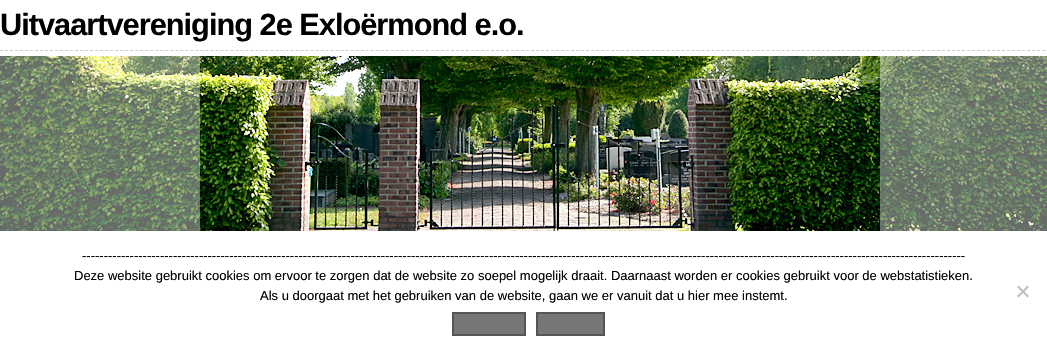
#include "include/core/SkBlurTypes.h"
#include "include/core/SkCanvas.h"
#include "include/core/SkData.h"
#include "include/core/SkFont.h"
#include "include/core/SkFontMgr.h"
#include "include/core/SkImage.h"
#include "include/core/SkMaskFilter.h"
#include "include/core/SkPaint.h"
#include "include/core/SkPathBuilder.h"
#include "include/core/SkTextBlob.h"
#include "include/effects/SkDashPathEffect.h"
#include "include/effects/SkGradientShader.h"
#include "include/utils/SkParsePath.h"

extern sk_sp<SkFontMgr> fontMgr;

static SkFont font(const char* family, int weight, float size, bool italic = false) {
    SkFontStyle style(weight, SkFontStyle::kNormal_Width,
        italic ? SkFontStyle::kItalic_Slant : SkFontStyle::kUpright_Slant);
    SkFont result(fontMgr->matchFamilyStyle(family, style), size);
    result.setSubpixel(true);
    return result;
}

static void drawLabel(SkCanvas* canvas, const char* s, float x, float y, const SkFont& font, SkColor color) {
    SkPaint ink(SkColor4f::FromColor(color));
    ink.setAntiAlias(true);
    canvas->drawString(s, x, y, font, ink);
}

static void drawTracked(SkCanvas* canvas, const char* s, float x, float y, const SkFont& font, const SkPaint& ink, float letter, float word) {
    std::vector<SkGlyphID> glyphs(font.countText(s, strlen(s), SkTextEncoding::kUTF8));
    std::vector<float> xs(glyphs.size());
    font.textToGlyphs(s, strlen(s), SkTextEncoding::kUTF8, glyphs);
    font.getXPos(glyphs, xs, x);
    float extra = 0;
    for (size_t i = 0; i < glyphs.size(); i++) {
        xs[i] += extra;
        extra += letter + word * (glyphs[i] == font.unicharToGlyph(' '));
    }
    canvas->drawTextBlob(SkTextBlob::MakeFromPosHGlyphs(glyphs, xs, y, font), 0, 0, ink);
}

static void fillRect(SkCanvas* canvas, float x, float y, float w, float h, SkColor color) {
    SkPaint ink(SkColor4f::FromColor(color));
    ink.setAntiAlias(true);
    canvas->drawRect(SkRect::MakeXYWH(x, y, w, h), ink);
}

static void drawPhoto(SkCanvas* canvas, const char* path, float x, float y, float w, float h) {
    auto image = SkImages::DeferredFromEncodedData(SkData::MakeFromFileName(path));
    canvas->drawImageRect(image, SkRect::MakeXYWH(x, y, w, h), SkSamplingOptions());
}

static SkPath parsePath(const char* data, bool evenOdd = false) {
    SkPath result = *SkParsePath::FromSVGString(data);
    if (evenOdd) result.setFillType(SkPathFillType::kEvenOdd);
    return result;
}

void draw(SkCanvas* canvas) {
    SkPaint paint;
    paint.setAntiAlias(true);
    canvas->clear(0xFFFFFFFF);
    SkFont font1 = font("Liberation Sans", 700, 30.75f);
    paint.setColor(0xFF000000);
    drawTracked(canvas, "Uitvaartvereniging 2e Exloërmond e.o.", 0, 35, font1, paint, -1, 0);
    paint.setStroke(true);
    paint.setStrokeWidth(1);
    paint.setColor(0xFFCCCCCC);
    paint.setPathEffect(SkDashPathEffect::Make({{3, 2.01f}}, 0));
    canvas->drawPath(parsePath("M0 50.5H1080"), paint);
    paint.setPathEffect(nullptr);
    drawPhoto(canvas, "assets/img1.png", 0, 56, 1047, 175);
    fillRect(canvas, 0, 56, 200, 175, 0x66FFFFFF);
    fillRect(canvas, 880, 56, 167, 175, 0x66FFFFFF);
    SkFont font2 = font("Liberation Sans", 400, 13);
    drawLabel(canvas, "------------------------------------------------------------------------------------------------------------------------------------------------------------------------------------------------------------", 82, 260, font2, 0xFF000000);
    drawLabel(canvas, "Deze website gebruikt cookies om ervoor te zorgen dat de website zo soepel mogelijk draait. Daarnaast worden er cookies gebruikt voor de webstatistieken.", 74, 280, font2, 0xFF000000);
    drawLabel(canvas, "Als u doorgaat met het gebruiken van de website, gaan we er vanuit dat u hier mee instemt.", 260, 300, font2, 0xFF000000);
    paint.setStroke(false);
    paint.setColor(0xFFC0C0C0);
    canvas->drawPath(parsePath("M1027.5 285.5L1029 287L1018.5 297.5L1017 296Z"), paint);
    canvas->drawPath(parsePath("M1017 287L1018.5 285.5L1029 296L1027.5 297.5Z"), paint);
    paint.setColor(0xFF777777);
    canvas->drawRect(SkRect::MakeXYWH(453, 313, 72, 22), paint);
    paint.setStroke(true);
    paint.setStrokeWidth(2);
    paint.setColor(0xFF555555);
    canvas->drawRect(SkRect::MakeXYWH(453, 313, 72, 22), paint);
    paint.setStroke(false);
    paint.setColor(0xFF777777);
    canvas->drawRect(SkRect::MakeXYWH(537, 313, 67, 22), paint);
    paint.setStroke(true);
    paint.setColor(0xFF555555);
    canvas->drawRect(SkRect::MakeXYWH(537, 313, 67, 22), paint);
}
